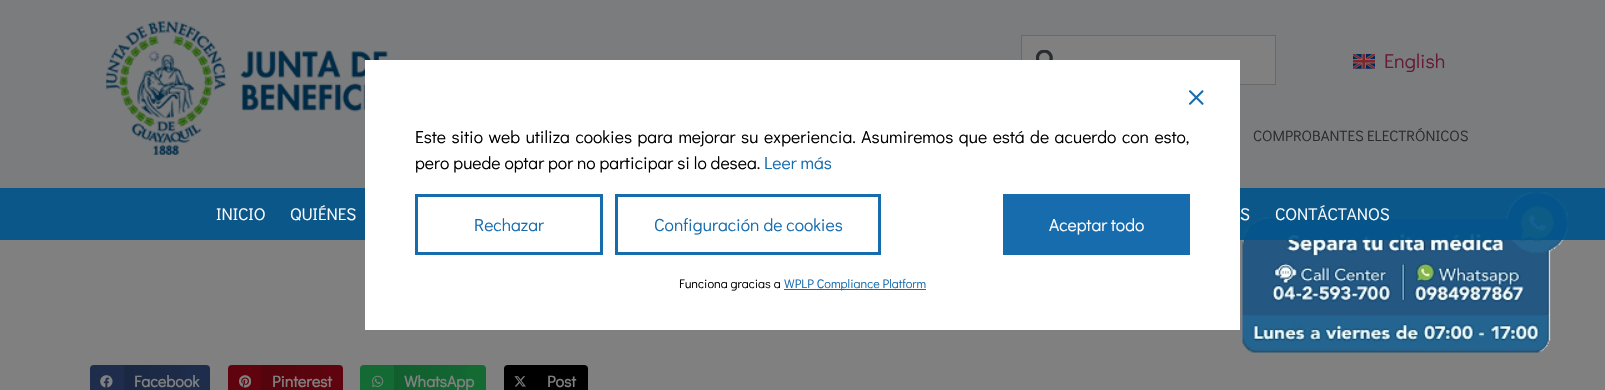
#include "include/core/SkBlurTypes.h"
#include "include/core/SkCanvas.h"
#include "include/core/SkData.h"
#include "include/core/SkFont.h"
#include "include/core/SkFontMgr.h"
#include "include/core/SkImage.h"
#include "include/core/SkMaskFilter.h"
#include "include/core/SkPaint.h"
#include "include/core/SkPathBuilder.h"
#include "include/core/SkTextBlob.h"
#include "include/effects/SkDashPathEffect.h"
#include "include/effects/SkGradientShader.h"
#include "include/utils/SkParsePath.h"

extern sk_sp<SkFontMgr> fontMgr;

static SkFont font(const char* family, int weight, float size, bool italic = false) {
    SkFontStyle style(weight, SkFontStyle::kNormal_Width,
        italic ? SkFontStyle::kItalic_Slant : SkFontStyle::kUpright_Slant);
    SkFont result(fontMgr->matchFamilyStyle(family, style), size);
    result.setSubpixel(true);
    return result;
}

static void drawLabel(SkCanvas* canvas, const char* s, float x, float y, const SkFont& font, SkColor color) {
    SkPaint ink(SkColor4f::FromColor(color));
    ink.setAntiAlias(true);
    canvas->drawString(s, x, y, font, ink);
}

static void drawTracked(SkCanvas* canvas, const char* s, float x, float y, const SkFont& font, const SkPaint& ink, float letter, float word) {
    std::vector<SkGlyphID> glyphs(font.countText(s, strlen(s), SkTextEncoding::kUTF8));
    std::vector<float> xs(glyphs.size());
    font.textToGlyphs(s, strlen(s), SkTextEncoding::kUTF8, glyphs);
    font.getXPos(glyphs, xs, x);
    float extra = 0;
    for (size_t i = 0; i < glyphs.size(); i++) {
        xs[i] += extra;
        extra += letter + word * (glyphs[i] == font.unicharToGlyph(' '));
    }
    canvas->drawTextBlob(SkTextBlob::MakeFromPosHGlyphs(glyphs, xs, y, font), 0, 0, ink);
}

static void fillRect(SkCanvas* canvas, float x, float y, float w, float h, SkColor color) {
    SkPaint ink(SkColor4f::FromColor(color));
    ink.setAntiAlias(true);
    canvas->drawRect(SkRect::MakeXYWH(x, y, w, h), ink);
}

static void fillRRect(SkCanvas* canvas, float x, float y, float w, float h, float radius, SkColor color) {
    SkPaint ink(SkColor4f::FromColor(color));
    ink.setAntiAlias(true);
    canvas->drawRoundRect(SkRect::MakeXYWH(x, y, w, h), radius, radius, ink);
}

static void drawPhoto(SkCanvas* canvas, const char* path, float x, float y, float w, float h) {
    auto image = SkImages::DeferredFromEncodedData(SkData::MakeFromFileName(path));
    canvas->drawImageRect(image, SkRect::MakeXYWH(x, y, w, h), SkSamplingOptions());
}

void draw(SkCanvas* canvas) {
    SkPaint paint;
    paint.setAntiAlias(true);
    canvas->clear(0xFF808080);
    fillRect(canvas, 0, 0, 1605, 240, 0xFF7A7C7E);
    drawPhoto(canvas, "assets/img1.png", 106, 21, 282, 134);
    paint.setColor(0xFF808080);
    canvas->drawRect(SkRect::MakeXYWH(1021.45f, 35.45f, 254.1f, 49.1f), paint);
    paint.setStroke(true);
    paint.setStrokeWidth(0.9f);
    paint.setColor(0xFF676767);
    canvas->drawRect(SkRect::MakeXYWH(1021.45f, 35.45f, 254.1f, 49.1f), paint);
    drawPhoto(canvas, "assets/img2.png", 1036, 50, 17, 10);
    drawPhoto(canvas, "assets/img3.png", 1353, 54, 22, 15);
    SkFont font1 = font("Didact Gothic", 400, 20);
    drawLabel(canvas, "English", 1384, 68, font1, 0xFF661A33);
    SkFont font2 = font("Didact Gothic", 400, 15);
    drawLabel(canvas, "COMPROBANTES ELECTRÓNICOS", 1253, 141, font2, 0xFF2A2D30);
    drawPhoto(canvas, "assets/img5.png", 1242, 192, 326, 161);
    fillRect(canvas, 0, 188, 1605, 52, 0xEB02548B);
    SkFont font3 = font("Didact Gothic", 400, 17);
    drawLabel(canvas, "INICIO", 216, 220, font3, 0xFFFFFFFF);
    drawLabel(canvas, "QUIÉNES", 290, 220, font3, 0xFFFFFFFF);
    drawLabel(canvas, "S", 1240, 220, font3, 0xFFFFFFFF);
    drawLabel(canvas, "CONTÁCTANOS", 1275, 220, font3, 0xFFFFFFFF);
    fillRect(canvas, 365, 60, 875, 270, 0xFFFFFFFF);
    drawPhoto(canvas, "assets/img4.png", 1189, 90, 15, 15);
    SkFont font4 = font("Didact Gothic", 400, 17.5f);
    paint.setStroke(false);
    paint.setColor(0xFF000000);
    drawTracked(canvas, "Este sitio web utiliza cookies para mejorar su experiencia. Asumiremos que está de acuerdo con esto,", 415, 143, font4, paint, 0, 1.6f);
    drawLabel(canvas, "pero puede optar por no participar si lo desea.", 415, 169, font4, 0xFF000000);
    drawLabel(canvas, "Leer más", 764, 169, font4, 0xFF176CAE);
    paint.setStroke(true);
    paint.setStrokeWidth(3);
    paint.setColor(0xFF176CAE);
    canvas->drawRect(SkRect::MakeXYWH(416.5f, 195.5f, 185, 58), paint);
    drawLabel(canvas, "Rechazar", 474, 231, font4, 0xFF176CAE);
    canvas->drawRect(SkRect::MakeXYWH(616.5f, 195.5f, 263, 58), paint);
    drawLabel(canvas, "Configuración de cookies", 654, 231, font4, 0xFF176CAE);
    fillRect(canvas, 1003, 194, 187, 61, 0xFF176CAE);
    drawLabel(canvas, "Aceptar todo", 1049, 231, font4, 0xFFFFFFFF);
    SkFont font5 = font("Didact Gothic", 400, 12.5f);
    drawLabel(canvas, "Funciona gracias a", 679, 288, font5, 0xFF000000);
    fillRect(canvas, 784, 289, 142, 1, 0xFF176CAE);
    drawLabel(canvas, "WPLP Compliance Platform", 784, 288, font5, 0xFF176CAE);
    fillRRect(canvas, 90, 365, 120, 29, 4, 0xFF1E2D4C);
    drawPhoto(canvas, "assets/img6.png", 100, 375, 13, 13);
    paint.setStroke(false);
    {
        const SkColor colors[] = {0x1F000000, 0x00000000};
        const float stops[] = {0, 1};
        const SkPoint ends[] = {{124, 382}, {210, 382}};
        paint.setShader(SkGradientShader::MakeLinear(ends, colors, stops, 2, SkTileMode::kClamp));
        paint.setAlpha(255);
    }
    canvas->drawRect(SkRect::MakeXYWH(124, 365, 62, 25), paint);
    SkFont font6 = font("Didact Gothic", 700, 16);
    drawLabel(canvas, "Facebook", 134, 387, font6, 0xFF808080);
    fillRRect(canvas, 228, 365, 115, 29, 4, 0xFF5F040E);
    drawPhoto(canvas, "assets/img7.png", 239, 375, 12, 13);
    {
        const SkColor colors[] = {0x1F000000, 0x00000000};
        const float stops[] = {0, 1};
        const SkPoint ends[] = {{261, 382}, {343, 382}};
        paint.setShader(SkGradientShader::MakeLinear(ends, colors, stops, 2, SkTileMode::kClamp));
        paint.setAlpha(255);
    }
    canvas->drawRect(SkRect::MakeXYWH(261, 365, 65, 25), paint);
    drawLabel(canvas, "Pinterest", 272, 387, font6, 0xFF808080);
    fillRRect(canvas, 360, 365, 126, 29, 4, 0xFF136A33);
    drawPhoto(canvas, "assets/img8.png", 372, 375, 12, 12);
    {
        const SkColor colors[] = {0x1F000000, 0x00000000};
        const float stops[] = {0, 1};
        const SkPoint ends[] = {{394, 382}, {486, 382}};
        paint.setShader(SkGradientShader::MakeLinear(ends, colors, stops, 2, SkTileMode::kClamp));
        paint.setAlpha(255);
    }
    canvas->drawRect(SkRect::MakeXYWH(394, 365, 72, 25), paint);
    drawLabel(canvas, "WhatsApp", 404, 387, font6, 0xFF808080);
    fillRRect(canvas, 504, 365, 84, 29, 4, 0xFF000000);
    drawPhoto(canvas, "assets/img9.png", 514, 376, 12, 11);
    drawLabel(canvas, "Post", 547, 387, font6, 0xFF808080);
}
